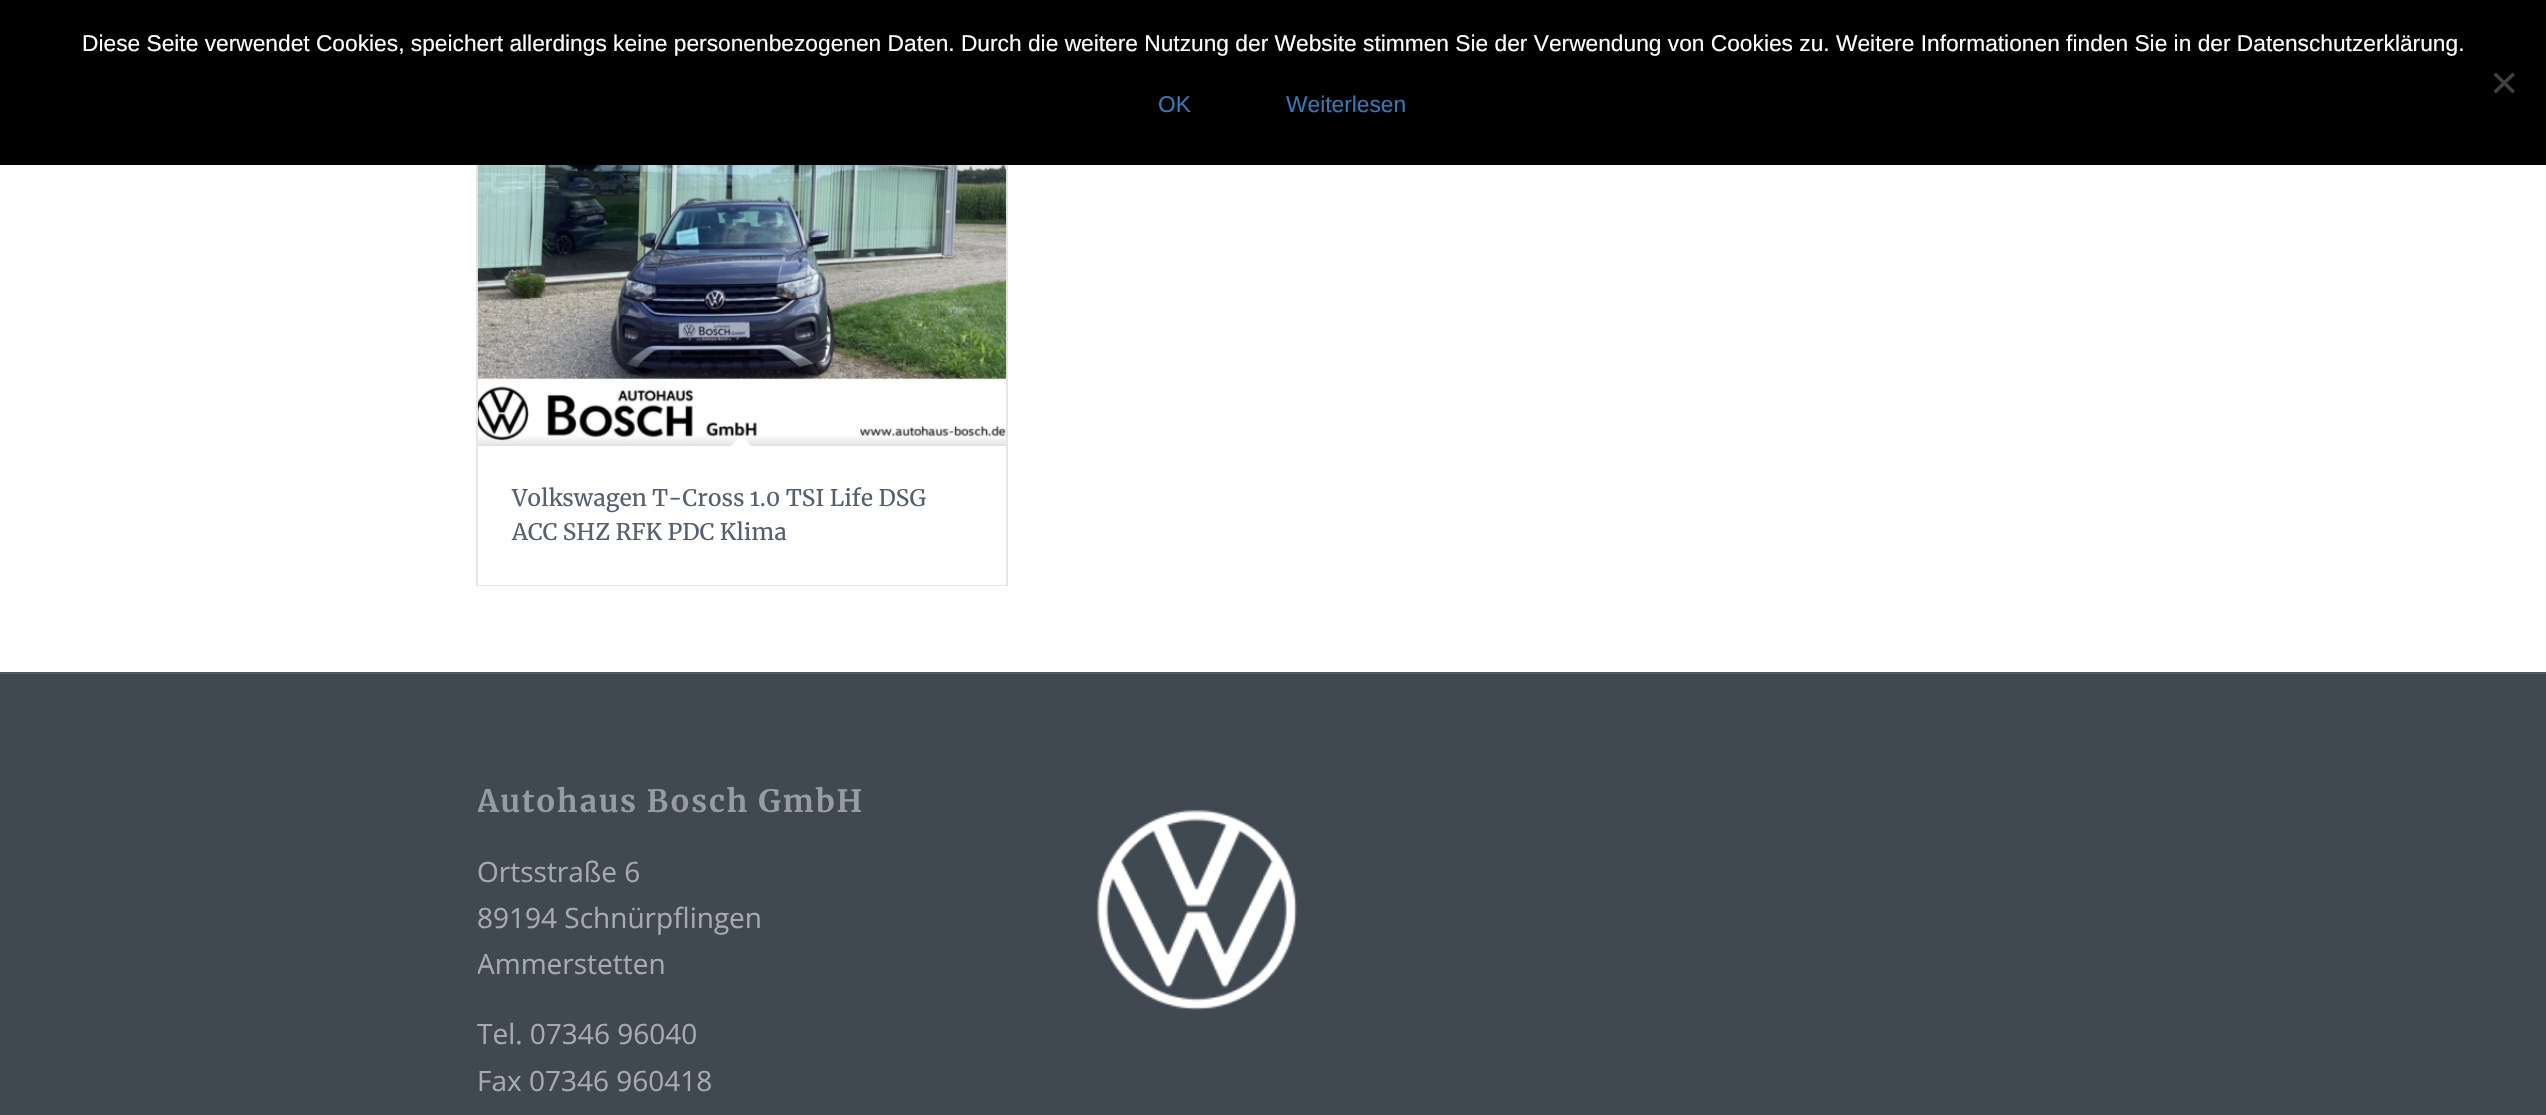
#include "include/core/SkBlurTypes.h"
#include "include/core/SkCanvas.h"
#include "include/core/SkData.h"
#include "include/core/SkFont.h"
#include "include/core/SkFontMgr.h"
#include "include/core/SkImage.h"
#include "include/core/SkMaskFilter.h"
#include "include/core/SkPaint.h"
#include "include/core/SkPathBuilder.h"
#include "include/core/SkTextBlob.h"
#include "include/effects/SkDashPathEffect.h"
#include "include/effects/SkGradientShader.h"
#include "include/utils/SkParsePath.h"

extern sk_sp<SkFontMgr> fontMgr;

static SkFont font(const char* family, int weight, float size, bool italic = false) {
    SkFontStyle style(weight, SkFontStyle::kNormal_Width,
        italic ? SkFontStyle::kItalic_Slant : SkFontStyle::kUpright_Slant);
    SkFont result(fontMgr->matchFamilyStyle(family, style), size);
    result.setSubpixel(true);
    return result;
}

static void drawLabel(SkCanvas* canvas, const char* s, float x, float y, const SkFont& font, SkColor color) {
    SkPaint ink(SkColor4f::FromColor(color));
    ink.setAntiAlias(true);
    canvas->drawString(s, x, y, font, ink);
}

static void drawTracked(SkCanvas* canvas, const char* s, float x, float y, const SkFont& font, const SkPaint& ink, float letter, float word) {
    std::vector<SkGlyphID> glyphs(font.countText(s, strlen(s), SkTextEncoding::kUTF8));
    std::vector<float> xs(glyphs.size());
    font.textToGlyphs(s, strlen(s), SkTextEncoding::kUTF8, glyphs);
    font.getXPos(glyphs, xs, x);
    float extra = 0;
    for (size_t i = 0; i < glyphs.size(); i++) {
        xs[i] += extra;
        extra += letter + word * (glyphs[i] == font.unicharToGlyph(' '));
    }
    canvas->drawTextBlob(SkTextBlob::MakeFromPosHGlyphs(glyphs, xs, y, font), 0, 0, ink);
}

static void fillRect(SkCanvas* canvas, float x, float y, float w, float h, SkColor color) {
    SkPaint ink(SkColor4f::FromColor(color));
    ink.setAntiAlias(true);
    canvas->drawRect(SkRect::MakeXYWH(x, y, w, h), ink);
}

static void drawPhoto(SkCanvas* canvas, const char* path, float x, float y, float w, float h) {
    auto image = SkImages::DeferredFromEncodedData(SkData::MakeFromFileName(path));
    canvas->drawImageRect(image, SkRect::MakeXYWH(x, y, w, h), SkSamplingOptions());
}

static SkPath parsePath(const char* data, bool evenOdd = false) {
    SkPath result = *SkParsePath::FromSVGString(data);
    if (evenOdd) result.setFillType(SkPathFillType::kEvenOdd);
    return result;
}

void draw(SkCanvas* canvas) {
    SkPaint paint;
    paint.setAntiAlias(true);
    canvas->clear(0xFFFFFFFF);
    paint.setStroke(true);
    paint.setStrokeWidth(2);
    paint.setColor(0xFFE6E6E6);
    canvas->drawRect(SkRect::MakeXYWH(477, 19, 530, 566), paint);
    fillRect(canvas, 0, 0, 2546, 165, 0xFF000000);
    SkFont font1 = font("Liberation Sans", 400, 22.75f);
    drawLabel(canvas, "Diese Seite verwendet Cookies, speichert allerdings keine personenbezogenen Daten. Durch die weitere Nutzung der Website stimmen Sie der Verwendung von Cookies zu. Weitere Informationen finden Sie in der Datenschutzerklärung.", 82, 51, font1, 0xFFFFFFFF);
    paint.setStroke(false);
    paint.setColor(0xFF404040);
    canvas->drawPath(parsePath("M2512.5 72.5L2515 75L2496 93.5L2493.5 91Z"), paint);
    canvas->drawPath(parsePath("M2493.5 75L2496 72.5L2515 91L2512.5 93.5Z"), paint);
    drawLabel(canvas, "OK", 1158, 112, font1, 0xFF337AB7);
    drawLabel(canvas, "Weiterlesen", 1286, 112, font1, 0xFF337AB7);
    fillRect(canvas, 478, 584, 528, 1, 0xFFFFFFFF);
    drawPhoto(canvas, "assets/img1.png", 477, 165, 530, 281);
    paint.setColor(0xFFFFFFFF);
    canvas->drawPath(parsePath("M741 435.5L753.5 448L741 460.5L729 448Z"), paint);
    SkFont font2 = font("Merriweather", 400, 22.75f);
    drawLabel(canvas, "Volkswagen T-Cross 1.0 TSI Life DSG", 512, 506, font2, 0xFF55606E);
    drawLabel(canvas, "ACC SHZ RFK PDC Klima", 512, 540, font2, 0xFF55606E);
    fillRect(canvas, 0, 674, 2546, 441, 0xFF404852);
    fillRect(canvas, 0, 672, 2546, 2, 0xFF4E5763);
    canvas->save();
    canvas->clipRect(SkRect::MakeXYWH(478, 753, 465, 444));
    SkFont font3 = font("Merriweather", 700, 30.75f);
    paint.setColor(0xFF969CA4);
    drawTracked(canvas, "Autohaus Bosch GmbH", 477, 812, font3, paint, 1.75f, 0);
    canvas->restore();
    SkFont font4 = font("Open Sans", 400, 28);
    drawLabel(canvas, "Ortsstraße 6", 477, 882, font4, 0xFFA7ABB1);
    drawLabel(canvas, "89194 Schnürpflingen", 477, 928, font4, 0xFFA7ABB1);
    canvas->save();
    canvas->clipRect(SkRect::MakeXYWH(478, 753, 465, 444));
    drawLabel(canvas, "Ammerstetten", 477, 974, font4, 0xFFA7ABB1);
    canvas->restore();
    drawLabel(canvas, "Tel. 07346 96040", 477, 1044, font4, 0xFFA7ABB1);
    drawLabel(canvas, "Fax 07346 960418", 477, 1091, font4, 0xFFA7ABB1);
    drawPhoto(canvas, "assets/img2.png", 1096, 809, 201, 201);
}
